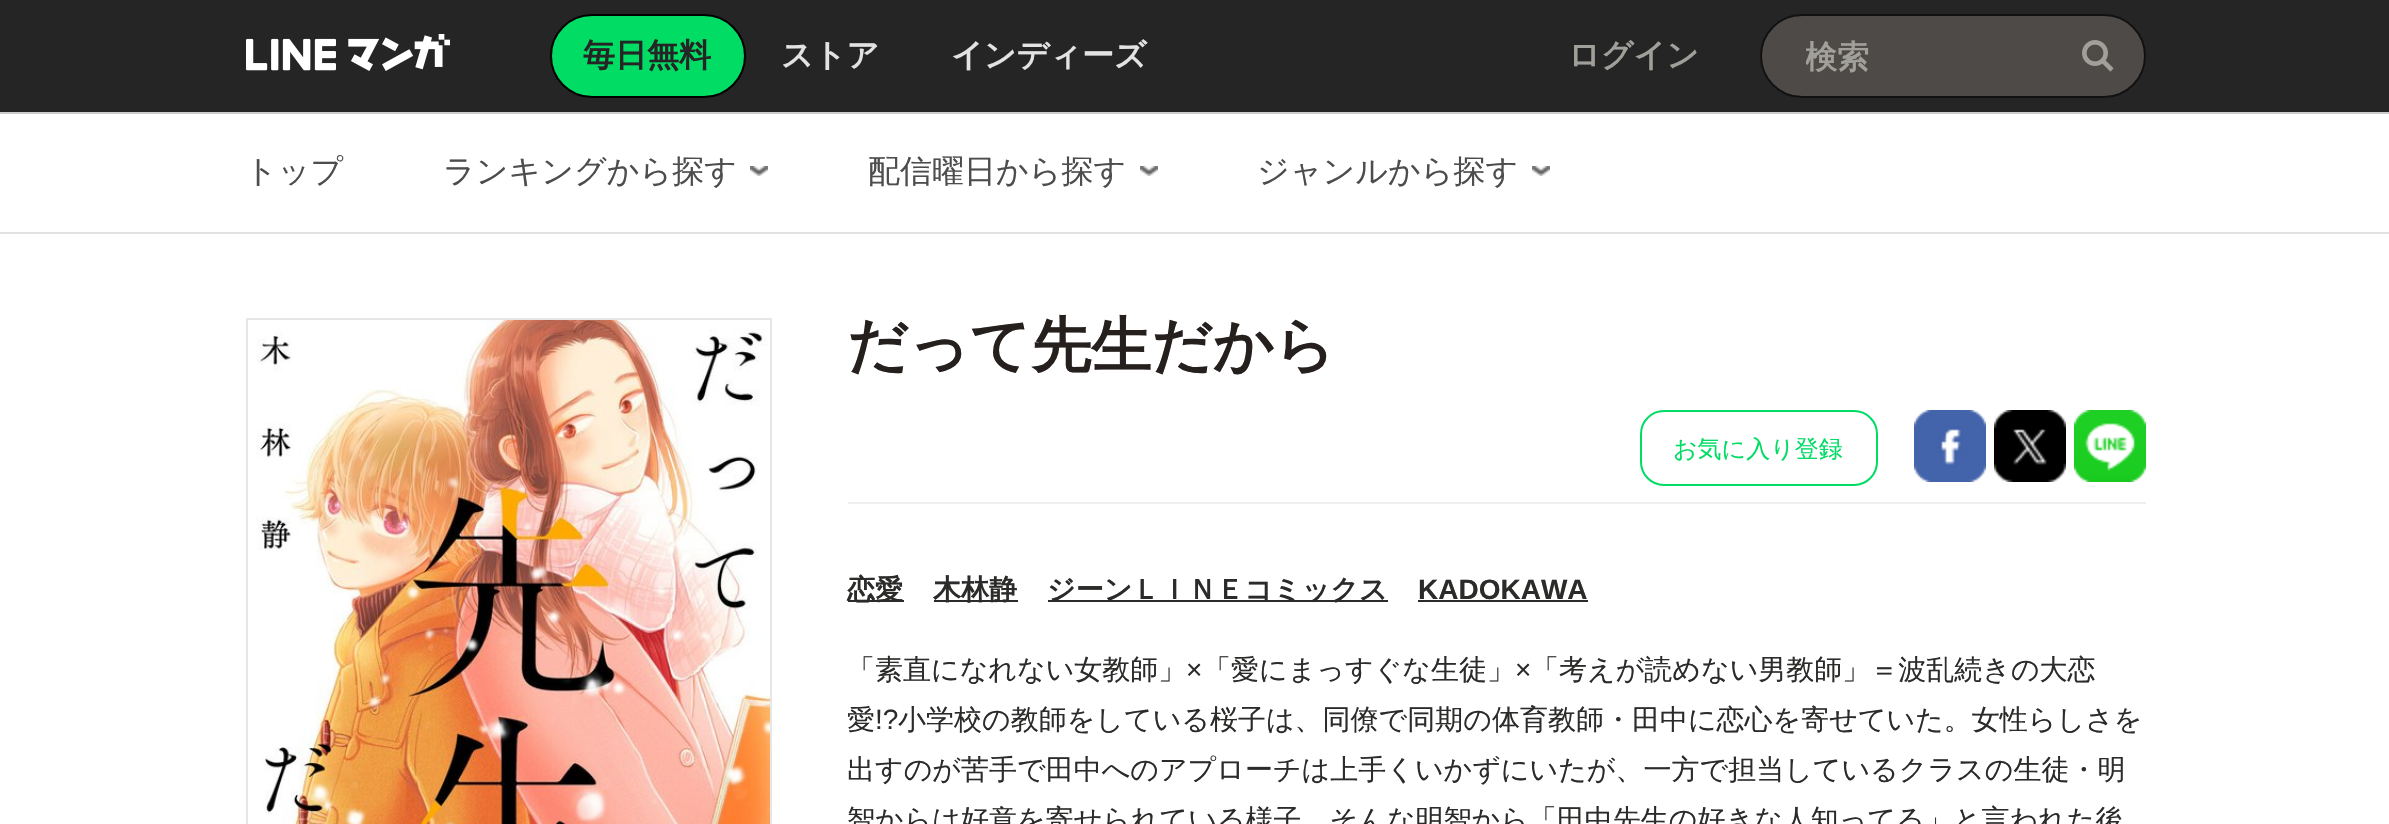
#include "include/core/SkBlurTypes.h"
#include "include/core/SkCanvas.h"
#include "include/core/SkData.h"
#include "include/core/SkFont.h"
#include "include/core/SkFontMgr.h"
#include "include/core/SkImage.h"
#include "include/core/SkMaskFilter.h"
#include "include/core/SkPaint.h"
#include "include/core/SkPathBuilder.h"
#include "include/core/SkTextBlob.h"
#include "include/effects/SkDashPathEffect.h"
#include "include/effects/SkGradientShader.h"
#include "include/utils/SkParsePath.h"

extern sk_sp<SkFontMgr> fontMgr;

static SkFont font(const char* family, int weight, float size, bool italic = false) {
    SkFontStyle style(weight, SkFontStyle::kNormal_Width,
        italic ? SkFontStyle::kItalic_Slant : SkFontStyle::kUpright_Slant);
    SkFont result(fontMgr->matchFamilyStyle(family, style), size);
    result.setSubpixel(true);
    return result;
}

static void drawLabel(SkCanvas* canvas, const char* s, float x, float y, const SkFont& font, SkColor color) {
    SkPaint ink(SkColor4f::FromColor(color));
    ink.setAntiAlias(true);
    canvas->drawString(s, x, y, font, ink);
}

static void fillRect(SkCanvas* canvas, float x, float y, float w, float h, SkColor color) {
    SkPaint ink(SkColor4f::FromColor(color));
    ink.setAntiAlias(true);
    canvas->drawRect(SkRect::MakeXYWH(x, y, w, h), ink);
}

static void drawPhoto(SkCanvas* canvas, const char* path, float x, float y, float w, float h) {
    auto image = SkImages::DeferredFromEncodedData(SkData::MakeFromFileName(path));
    canvas->drawImageRect(image, SkRect::MakeXYWH(x, y, w, h), SkSamplingOptions());
}

void draw(SkCanvas* canvas) {
    SkPaint paint;
    paint.setAntiAlias(true);
    canvas->clear(0xFFFFFFFF);
    fillRect(canvas, 0, 0, 2389, 112, 0xFF262525);
    drawPhoto(canvas, "assets/img1.png", 246, 34, 204, 37);
    paint.setColor(0xFF00DC64);
    canvas->drawRoundRect(SkRect::MakeXYWH(551, 15, 194, 82), 41, 41, paint);
    paint.setStroke(true);
    paint.setStrokeWidth(2);
    paint.setColor(0xFF000000);
    canvas->drawRoundRect(SkRect::MakeXYWH(551, 15, 194, 82), 41, 41, paint);
    SkFont font1 = font("WenQuanYi Zen Hei", 700, 32);
    drawLabel(canvas, "毎日無料", 583, 66, font1, 0xFF262525);
    drawLabel(canvas, "ストア", 781, 66, font1, 0xFFE3E3E3);
    drawLabel(canvas, "インディーズ", 951, 66, font1, 0xFFE3E3E3);
    drawLabel(canvas, "ログイン", 1568, 66, font1, 0xFFA19F9A);
    paint.setStroke(false);
    paint.setColor(0xFF4D4A48);
    canvas->drawRoundRect(SkRect::MakeXYWH(1761, 15, 384, 82), 41, 41, paint);
    paint.setStroke(true);
    paint.setColor(0xFF121111);
    canvas->drawRoundRect(SkRect::MakeXYWH(1761, 15, 384, 82), 41, 41, paint);
    canvas->save();
    canvas->clipRect(SkRect::MakeXYWH(1806, 38, 256, 42));
    drawLabel(canvas, "検索", 1805, 68, font1, 0xFFA19F9A);
    canvas->restore();
    drawPhoto(canvas, "assets/img2.png", 2082, 40, 32, 32);
    fillRect(canvas, 0, 112, 2389, 2, 0xFFCCCCCC);
    SkFont font2 = font("WenQuanYi Zen Hei", 500, 32);
    drawLabel(canvas, "トップ", 245, 182, font2, 0xFF4D4D4D);
    drawLabel(canvas, "ランキングから探す", 443, 182, font2, 0xFF4D4D4D);
    drawPhoto(canvas, "assets/img3.png", 750, 166, 18, 10);
    drawLabel(canvas, "配信曜日から探す", 868, 182, font2, 0xFF4D4D4D);
    drawPhoto(canvas, "assets/img3.png", 1140, 166, 18, 10);
    drawLabel(canvas, "ジャンルから探す", 1257, 182, font2, 0xFF4D4D4D);
    drawPhoto(canvas, "assets/img3.png", 1532, 166, 18, 10);
    fillRect(canvas, 0, 232, 2389, 2, 0xFFE2E1E1);
    paint.setColor(0xFFE6E6E6);
    canvas->drawRect(SkRect::MakeXYWH(247, 319, 524, 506), paint);
    drawPhoto(canvas, "assets/img4.png", 256, 320, 514, 504);
    SkFont font3 = font("WenQuanYi Zen Hei", 700, 60);
    drawLabel(canvas, "だって先生だから", 847, 366, font3, 0xFF251F1E);
    paint.setColor(0xFF00DC64);
    canvas->drawRoundRect(SkRect::MakeXYWH(1641, 411, 236, 74), 23, 23, paint);
    SkFont font4 = font("WenQuanYi Zen Hei", 500, 24);
    drawLabel(canvas, "お気に入り登録", 1673, 457, font4, 0xFF00DC64);
    drawPhoto(canvas, "assets/img5.png", 1914, 410, 72, 72);
    drawPhoto(canvas, "assets/img6.png", 1994, 410, 72, 72);
    drawPhoto(canvas, "assets/img7.png", 2074, 410, 72, 72);
    fillRect(canvas, 848, 502, 1298, 2, 0xFFF0EFED);
    fillRect(canvas, 848, 600, 56, 2, 0xFF2B2B2A);
    SkFont font5 = font("WenQuanYi Zen Hei", 700, 28);
    drawLabel(canvas, "恋愛", 847, 599, font5, 0xFF2B2B2A);
    fillRect(canvas, 934, 600, 84, 2, 0xFF2B2B2A);
    drawLabel(canvas, "木林静", 933, 599, font5, 0xFF2B2B2A);
    fillRect(canvas, 1048, 600, 340, 2, 0xFF2B2B2A);
    drawLabel(canvas, "ジーンＬＩＮＥコミックス", 1047, 599, font5, 0xFF2B2B2A);
    SkFont font6 = font("Liberation Sans", 700, 28);
    drawLabel(canvas, "KADOKAWA", 1418, 599, font6, 0xFF2B2B2A);
    fillRect(canvas, 1418, 600, 170, 2, 0xFF2B2B2A);
    SkFont font7 = font("WenQuanYi Zen Hei", 500, 28);
    drawLabel(canvas, "「素直になれない女教師」", 847, 679, font7, 0xFF2B2B2A);
    SkFont font8 = font("Liberation Sans", 400, 28);
    drawLabel(canvas, "×", 1186, 679, font8, 0xFF2B2B2A);
    drawLabel(canvas, "「愛にまっすぐな生徒」", 1203, 679, font7, 0xFF2B2B2A);
    drawLabel(canvas, "×", 1515, 679, font8, 0xFF2B2B2A);
    drawLabel(canvas, "「考えが読めない男教師」＝波乱続きの大恋", 1531, 679, font7, 0xFF2B2B2A);
    canvas->save();
    canvas->clipRect(SkRect::MakeXYWH(848, 644, 1298, 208));
    drawLabel(canvas, "愛", 847, 729, font7, 0xFF2B2B2A);
    canvas->restore();
    drawLabel(canvas, "!?", 875, 729, font8, 0xFF2B2B2A);
    drawLabel(canvas, "小学校の教師をしている桜子は、同僚で同期の体育教師・田中に恋心を寄せていた。女性らしさを", 898, 729, font7, 0xFF2B2B2A);
    drawLabel(canvas, "出すのが苦手で田中へのアプローチは上手くいかずにいたが、一方で担当しているクラスの生徒・明", 847, 779, font7, 0xFF2B2B2A);
    drawLabel(canvas, "智からは好意を寄せられている様子。そんな明智から「田中先生の好きな人知ってる」と言われた後", 847, 829, font7, 0xFF2B2B2A);
}
